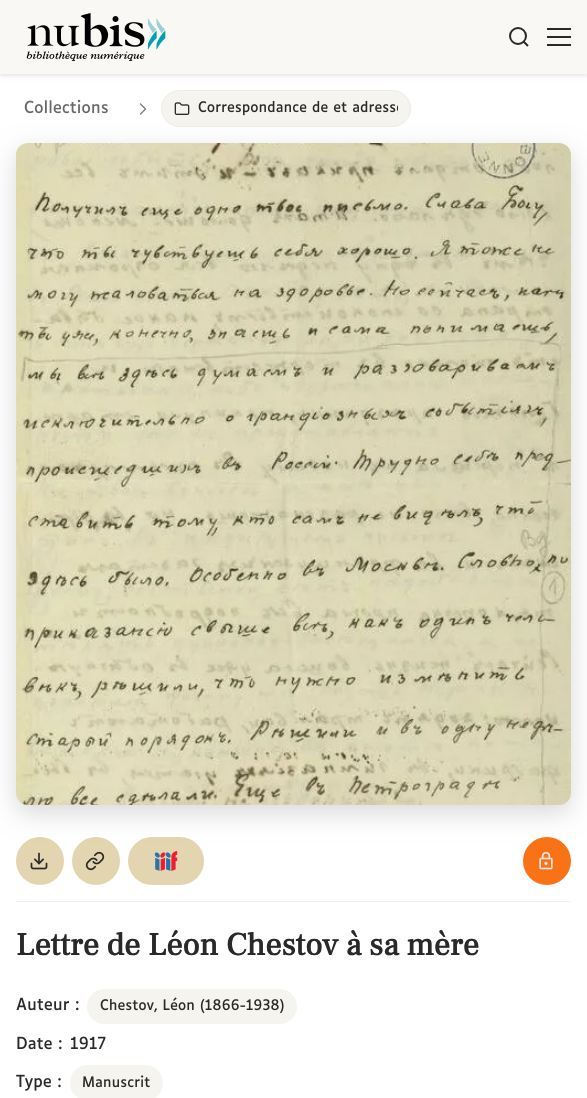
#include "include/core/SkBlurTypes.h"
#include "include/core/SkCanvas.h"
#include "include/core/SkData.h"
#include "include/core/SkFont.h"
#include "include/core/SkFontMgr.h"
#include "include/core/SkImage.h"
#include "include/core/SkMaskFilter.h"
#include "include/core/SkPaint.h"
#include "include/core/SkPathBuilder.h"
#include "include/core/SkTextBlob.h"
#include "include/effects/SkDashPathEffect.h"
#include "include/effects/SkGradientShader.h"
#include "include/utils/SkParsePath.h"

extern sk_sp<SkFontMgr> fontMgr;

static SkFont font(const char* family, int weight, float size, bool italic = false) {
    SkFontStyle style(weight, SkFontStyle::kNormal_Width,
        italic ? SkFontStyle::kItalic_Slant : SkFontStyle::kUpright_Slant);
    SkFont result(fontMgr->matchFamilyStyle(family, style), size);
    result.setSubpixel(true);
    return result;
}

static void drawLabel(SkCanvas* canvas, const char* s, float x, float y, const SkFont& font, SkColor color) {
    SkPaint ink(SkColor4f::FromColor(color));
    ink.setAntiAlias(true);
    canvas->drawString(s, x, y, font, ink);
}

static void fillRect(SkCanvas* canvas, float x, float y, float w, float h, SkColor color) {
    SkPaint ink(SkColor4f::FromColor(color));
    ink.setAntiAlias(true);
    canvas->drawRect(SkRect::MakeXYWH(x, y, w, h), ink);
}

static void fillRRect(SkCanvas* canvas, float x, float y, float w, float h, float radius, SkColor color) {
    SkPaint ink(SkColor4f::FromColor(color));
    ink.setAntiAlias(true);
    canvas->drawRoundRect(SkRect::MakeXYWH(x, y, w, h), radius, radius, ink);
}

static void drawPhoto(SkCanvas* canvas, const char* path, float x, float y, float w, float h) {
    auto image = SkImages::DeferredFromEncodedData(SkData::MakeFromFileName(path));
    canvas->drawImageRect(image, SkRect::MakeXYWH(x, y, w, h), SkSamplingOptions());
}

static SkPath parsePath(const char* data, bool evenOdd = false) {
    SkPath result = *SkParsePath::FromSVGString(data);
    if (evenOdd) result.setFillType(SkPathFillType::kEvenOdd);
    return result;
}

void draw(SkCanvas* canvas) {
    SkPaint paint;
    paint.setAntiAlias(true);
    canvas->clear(0xFFFFFFFF);
    paint.setColor(0x1A000000);
    paint.setMaskFilter(SkMaskFilter::MakeBlur(kNormal_SkBlurStyle, 2));
    canvas->drawRect(SkRect::MakeXYWH(0, 2, 587, 74), paint);
    paint.setMaskFilter(nullptr);
    fillRect(canvas, 0, 0, 587, 74, 0xFFF9F8F5);
    drawPhoto(canvas, "assets/img1.png", 26, 13, 140, 48);
    paint.setStroke(true);
    paint.setStrokeWidth(2);
    paint.setColor(0xFF282928);
    canvas->drawCircle(518, 36, 8, paint);
    canvas->drawPath(parsePath("M528 46L523.5 41.5"), paint);
    fillRect(canvas, 547, 28, 24, 2, 0xFF282928);
    fillRect(canvas, 547, 36, 24, 2, 0xFF282928);
    fillRect(canvas, 547, 44, 24, 2, 0xFF282928);
    drawPhoto(canvas, "assets/img2.png", 24, 99, 84, 15);
    paint.setStrokeWidth(1.2f);
    paint.setStrokeCap(SkPaint::kRound_Cap);
    paint.setStrokeJoin(SkPaint::kRound_Join);
    paint.setColor(0xFF787777);
    canvas->drawPath(parsePath("M140.5 114L145.5 109L140.5 104"), paint);
    paint.setStroke(false);
    paint.setColor(0xFFF6F4EF);
    canvas->drawRoundRect(SkRect::MakeXYWH(161.5f, 90.5f, 249, 36), 18, 18, paint);
    paint.setStroke(true);
    paint.setStrokeWidth(1);
    paint.setStrokeCap(SkPaint::kButt_Cap);
    paint.setStrokeJoin(SkPaint::kMiter_Join);
    paint.setColor(0xFFEFECE3);
    canvas->drawRoundRect(SkRect::MakeXYWH(161.5f, 90.5f, 249, 36), 18, 18, paint);
    drawPhoto(canvas, "assets/img3.png", 174, 102, 16, 13);
    drawPhoto(canvas, "assets/img4.png", 198, 100, 200, 16);
    paint.setStroke(false);
    paint.setColor(0xFFE3D5B0);
    canvas->drawCircle(40, 861, 24, paint);
    canvas->drawCircle(96, 861, 24, paint);
    drawPhoto(canvas, "assets/img7.png", 85, 851, 20, 20);
    fillRRect(canvas, 128, 837, 76, 48, 24, 0xFFE3D5B0);
    drawPhoto(canvas, "assets/img8.png", 154, 851, 24, 20);
    paint.setColor(0xFFF97316);
    canvas->drawCircle(547, 861, 24, paint);
    drawPhoto(canvas, "assets/img9.png", 539, 851, 14, 19);
    paint.setColor(0x26000000);
    paint.setMaskFilter(SkMaskFilter::MakeBlur(kNormal_SkBlurStyle, 12.5f));
    canvas->drawRoundRect(SkRect::MakeXYWH(16, 151, 555, 662), 12, 12, paint);
    paint.setMaskFilter(nullptr);
    drawPhoto(canvas, "assets/img5.png", 16, 143, 555, 662);
    fillRect(canvas, 16, 901, 555, 1, 0xFFF1EEE6);
    drawPhoto(canvas, "assets/img6.png", 30, 852, 18, 18);
    SkFont font1 = font("Frank Ruhl Libre", 700, 32);
    drawLabel(canvas, "Lettre de Léon Chestov à sa mère", 16, 955, font1, 0xFF282928);
    drawPhoto(canvas, "assets/img10.png", 16, 997, 63, 14);
    fillRRect(canvas, 87, 989, 210, 35, 17.5f, 0xFFF6F4EF);
    drawPhoto(canvas, "assets/img11.png", 100, 997, 184, 17);
    drawPhoto(canvas, "assets/img12.png", 17, 1036, 45, 14);
    drawPhoto(canvas, "assets/img13.png", 70, 1036, 36, 14);
    drawPhoto(canvas, "assets/img14.png", 16, 1074, 45, 17);
    fillRRect(canvas, 70, 1065, 93, 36, 18, 0xFFF6F4EF);
    drawPhoto(canvas, "assets/img15.png", 83, 1075, 67, 13);
}
